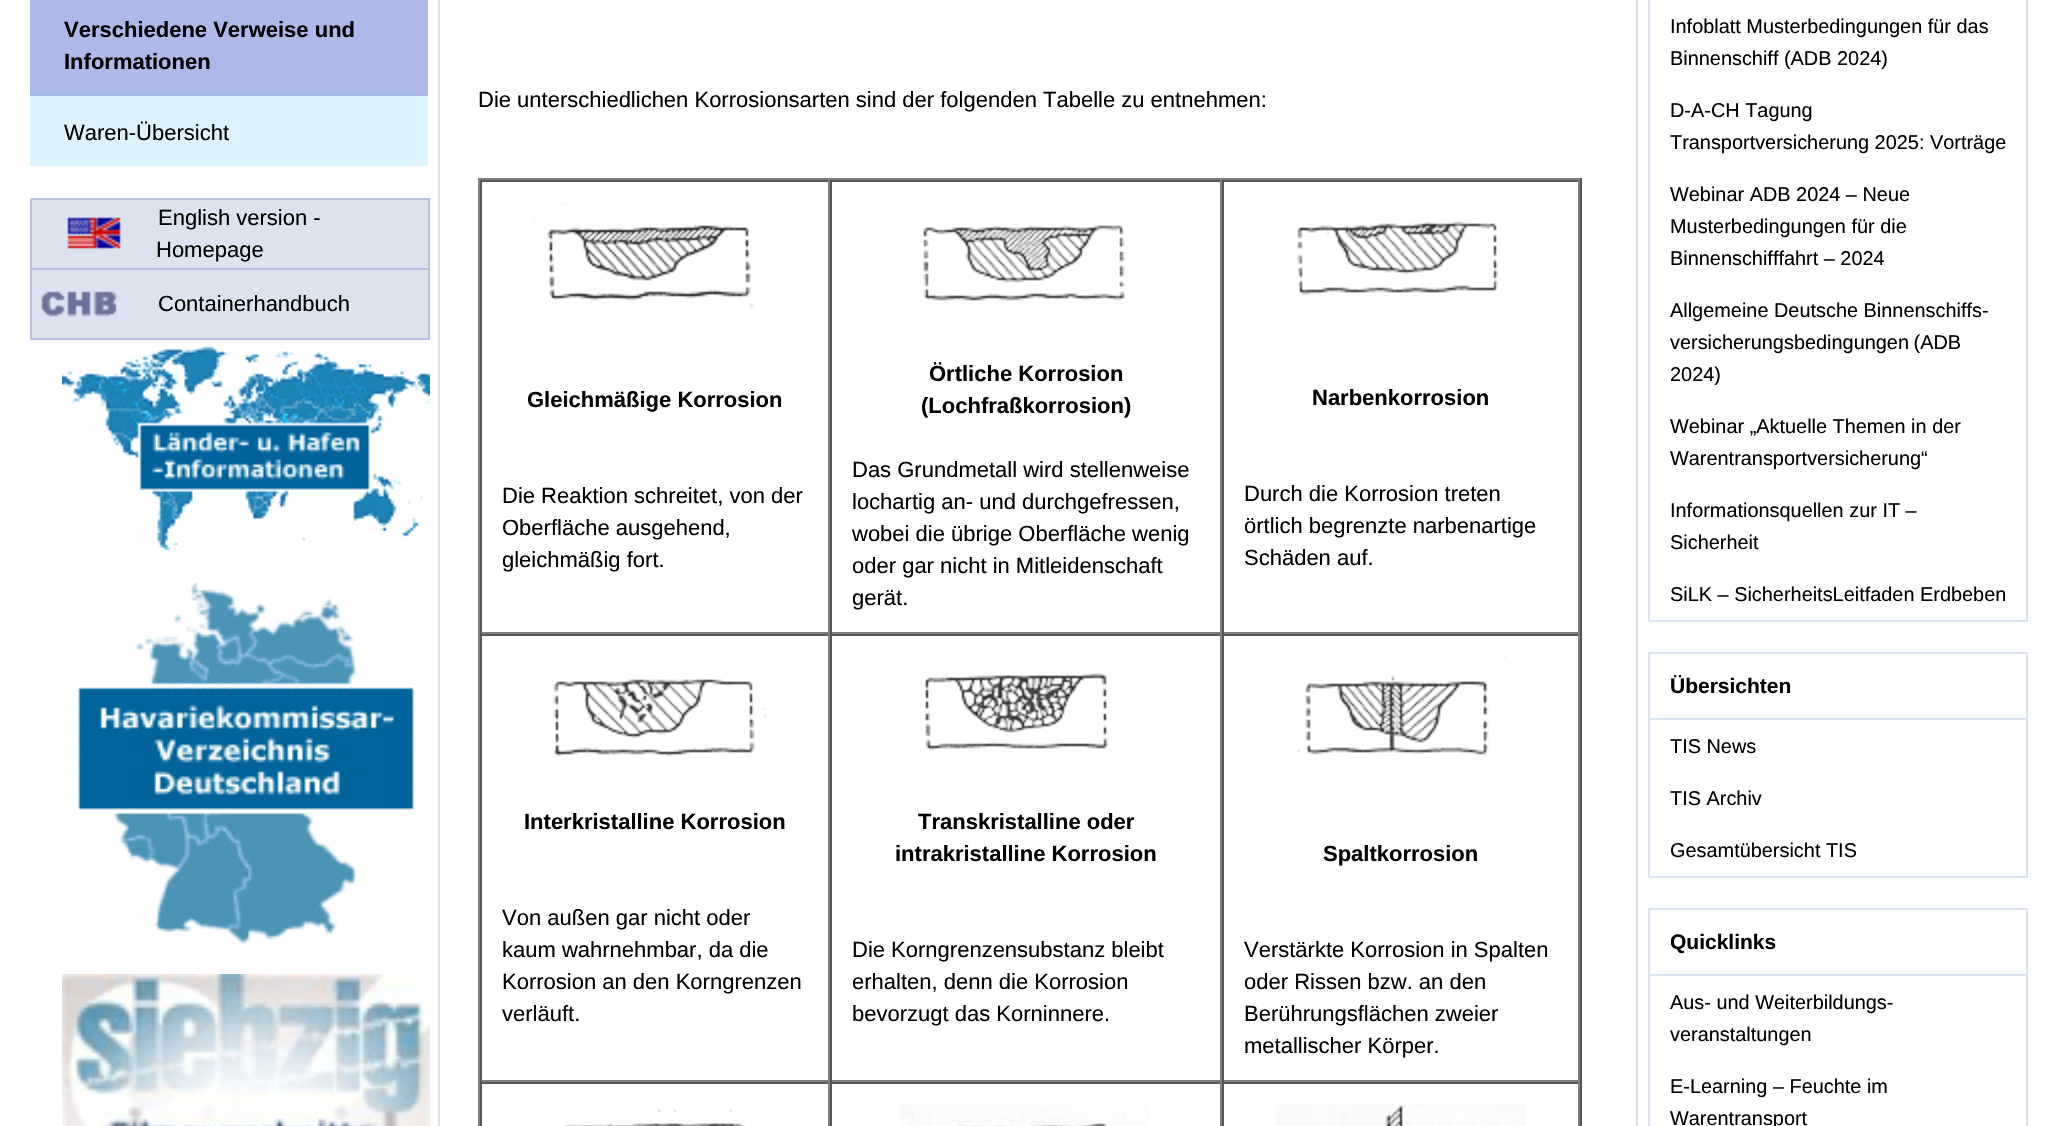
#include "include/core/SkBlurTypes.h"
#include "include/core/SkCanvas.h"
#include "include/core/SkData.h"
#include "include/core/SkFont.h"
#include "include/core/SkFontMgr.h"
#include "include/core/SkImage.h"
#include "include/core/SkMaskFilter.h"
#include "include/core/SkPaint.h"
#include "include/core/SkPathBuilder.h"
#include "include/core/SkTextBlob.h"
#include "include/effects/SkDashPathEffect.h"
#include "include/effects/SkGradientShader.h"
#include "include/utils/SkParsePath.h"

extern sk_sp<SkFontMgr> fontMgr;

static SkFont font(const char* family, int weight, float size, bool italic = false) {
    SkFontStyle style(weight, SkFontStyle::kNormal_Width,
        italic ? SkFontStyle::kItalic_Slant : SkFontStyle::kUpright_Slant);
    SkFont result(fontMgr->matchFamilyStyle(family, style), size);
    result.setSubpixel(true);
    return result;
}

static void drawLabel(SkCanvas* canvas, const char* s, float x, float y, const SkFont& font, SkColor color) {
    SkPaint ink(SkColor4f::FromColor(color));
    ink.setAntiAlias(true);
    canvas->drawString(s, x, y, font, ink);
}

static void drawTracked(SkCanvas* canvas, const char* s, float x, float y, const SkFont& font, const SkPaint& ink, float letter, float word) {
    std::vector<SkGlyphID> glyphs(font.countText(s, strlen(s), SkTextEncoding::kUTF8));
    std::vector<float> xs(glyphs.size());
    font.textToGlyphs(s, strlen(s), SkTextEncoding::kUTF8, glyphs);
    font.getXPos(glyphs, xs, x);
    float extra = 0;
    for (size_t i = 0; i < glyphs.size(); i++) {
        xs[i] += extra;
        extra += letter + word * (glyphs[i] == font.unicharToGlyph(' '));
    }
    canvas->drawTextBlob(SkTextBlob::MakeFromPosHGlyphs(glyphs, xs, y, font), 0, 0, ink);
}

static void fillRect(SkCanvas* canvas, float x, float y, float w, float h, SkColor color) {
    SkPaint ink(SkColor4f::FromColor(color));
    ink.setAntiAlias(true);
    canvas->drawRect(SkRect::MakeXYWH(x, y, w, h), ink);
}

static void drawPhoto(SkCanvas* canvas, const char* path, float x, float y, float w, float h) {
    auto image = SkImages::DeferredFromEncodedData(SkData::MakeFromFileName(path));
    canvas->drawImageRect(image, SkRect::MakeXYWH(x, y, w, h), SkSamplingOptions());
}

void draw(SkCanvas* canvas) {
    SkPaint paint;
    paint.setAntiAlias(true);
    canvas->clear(0xFFFFFFFF);
    fillRect(canvas, 30, 0, 398, 94, 0xFFADB9E8);
    SkFont font1 = font("Liberation Sans", 700, 22);
    drawLabel(canvas, "Verschiedene Verweise und", 64, 37, font1, 0xFF000000);
    drawLabel(canvas, "Informationen", 64, 69, font1, 0xFF000000);
    fillRect(canvas, 30, 96, 398, 70, 0xFFDCF2FD);
    fillRect(canvas, 30, 94, 398, 2, 0xFFA3B8E6);
    SkFont font2 = font("Liberation Sans", 400, 22);
    drawLabel(canvas, "Waren-Übersicht", 64, 140, font2, 0xFF000000);
    fillRect(canvas, 30, 198, 400, 2, 0xFFB9BFE0);
    fillRect(canvas, 30, 200, 2, 68, 0xFFB9BFE0);
    fillRect(canvas, 32, 200, 396, 68, 0xFFDBE3F1);
    fillRect(canvas, 428, 200, 2, 68, 0xFFB9BFE0);
    drawPhoto(canvas, "assets/img1.png", 67, 217, 54, 32);
    drawLabel(canvas, "English version -", 158, 225, font2, 0xFF000000);
    drawLabel(canvas, "Homepage", 156, 257, font2, 0xFF000000);
    fillRect(canvas, 30, 268, 400, 2, 0xFFB9BFE0);
    fillRect(canvas, 30, 270, 2, 68, 0xFFB9BFE0);
    fillRect(canvas, 32, 270, 396, 68, 0xFFDBE3F1);
    drawPhoto(canvas, "assets/img2.png", 41, 291, 76, 26);
    fillRect(canvas, 428, 270, 2, 68, 0xFFB9BFE0);
    drawLabel(canvas, "Containerhandbuch", 158, 311, font2, 0xFF000000);
    fillRect(canvas, 30, 338, 400, 2, 0xFFB9BFE0);
    drawPhoto(canvas, "assets/img3.png", 62, 346, 368, 204);
    drawPhoto(canvas, "assets/img4.png", 78, 582, 336, 363);
    drawPhoto(canvas, "assets/img5.png", 62, 974, 368, 152);
    fillRect(canvas, 1636, 0, 2, 1126, 0xFFDBE3F1);
    fillRect(canvas, 438, 0, 2, 1126, 0xFFDBE3F1);
    drawLabel(canvas, "Die unterschiedlichen Korrosionsarten sind der folgenden Tabelle zu entnehmen:", 478, 107, font2, 0xFF000000);
    fillRect(canvas, 478, 178, 1104, 2, 0xFF808080);
    fillRect(canvas, 1580, 178, 2, 948, 0xFF555555);
    fillRect(canvas, 478, 178, 2, 948, 0xFF808080);
    fillRect(canvas, 480, 180, 1100, 2, 0xFF555555);
    fillRect(canvas, 828, 180, 2, 454, 0xFF808080);
    fillRect(canvas, 480, 632, 350, 2, 0xFF808080);
    fillRect(canvas, 480, 180, 2, 454, 0xFF555555);
    drawPhoto(canvas, "assets/img6.png", 533, 202, 222, 107);
    drawLabel(canvas, "Gleichmäßige Korrosion", 527, 407, font1, 0xFF000000);
    drawLabel(canvas, "Die Reaktion schreitet, von der", 502, 503, font2, 0xFF000000);
    drawLabel(canvas, "Oberfläche ausgehend,", 502, 535, font2, 0xFF000000);
    drawLabel(canvas, "gleichmäßig fort.", 502, 567, font2, 0xFF000000);
    fillRect(canvas, 1220, 180, 2, 454, 0xFF808080);
    fillRect(canvas, 830, 632, 392, 2, 0xFF808080);
    fillRect(canvas, 830, 180, 2, 454, 0xFF555555);
    drawPhoto(canvas, "assets/img7.png", 923, 225, 209, 76);
    drawLabel(canvas, "Örtliche Korrosion", 929, 381, font1, 0xFF000000);
    drawLabel(canvas, "(Lochfraßkorrosion)", 921, 413, font1, 0xFF000000);
    drawLabel(canvas, "Das Grundmetall wird stellenweise", 852, 477, font2, 0xFF000000);
    drawLabel(canvas, "lochartig an- und durchgefressen,", 852, 509, font2, 0xFF000000);
    drawLabel(canvas, "wobei die übrige Oberfläche wenig", 852, 541, font2, 0xFF000000);
    drawLabel(canvas, "oder gar nicht in Mitleidenschaft", 852, 573, font2, 0xFF000000);
    drawLabel(canvas, "gerät.", 852, 605, font2, 0xFF000000);
    fillRect(canvas, 1578, 180, 2, 454, 0xFF808080);
    fillRect(canvas, 1222, 632, 358, 2, 0xFF808080);
    fillRect(canvas, 1222, 180, 2, 454, 0xFF555555);
    drawPhoto(canvas, "assets/img8.png", 1297, 221, 202, 74);
    drawLabel(canvas, "Narbenkorrosion", 1312, 405, font1, 0xFF000000);
    drawLabel(canvas, "Durch die Korrosion treten", 1244, 501, font2, 0xFF000000);
    drawLabel(canvas, "örtlich begrenzte narbenartige", 1244, 533, font2, 0xFF000000);
    drawLabel(canvas, "Schäden auf.", 1244, 565, font2, 0xFF000000);
    fillRect(canvas, 480, 634, 1100, 2, 0xFF555555);
    fillRect(canvas, 828, 634, 2, 448, 0xFF808080);
    fillRect(canvas, 480, 1080, 350, 2, 0xFF808080);
    fillRect(canvas, 480, 634, 2, 448, 0xFF555555);
    drawPhoto(canvas, "assets/img9.png", 553, 676, 214, 81);
    drawLabel(canvas, "Interkristalline Korrosion", 524, 829, font1, 0xFF000000);
    drawLabel(canvas, "Von außen gar nicht oder", 502, 925, font2, 0xFF000000);
    drawLabel(canvas, "kaum wahrnehmbar, da die", 502, 957, font2, 0xFF000000);
    drawLabel(canvas, "Korrosion an den Korngrenzen", 502, 989, font2, 0xFF000000);
    drawLabel(canvas, "verläuft.", 502, 1021, font2, 0xFF000000);
    fillRect(canvas, 1220, 634, 2, 448, 0xFF808080);
    fillRect(canvas, 830, 1080, 392, 2, 0xFF808080);
    fillRect(canvas, 830, 634, 2, 448, 0xFF555555);
    drawPhoto(canvas, "assets/img10.png", 924, 673, 185, 78);
    drawLabel(canvas, "Transkristalline oder", 918, 829, font1, 0xFF000000);
    drawLabel(canvas, "intrakristalline Korrosion", 895, 861, font1, 0xFF000000);
    drawLabel(canvas, "Die Korngrenzensubstanz bleibt", 852, 957, font2, 0xFF000000);
    drawLabel(canvas, "erhalten, denn die Korrosion", 852, 989, font2, 0xFF000000);
    drawLabel(canvas, "bevorzugt das Korninnere.", 852, 1021, font2, 0xFF000000);
    fillRect(canvas, 1578, 634, 2, 448, 0xFF808080);
    fillRect(canvas, 1222, 1080, 358, 2, 0xFF808080);
    fillRect(canvas, 1222, 634, 2, 448, 0xFF555555);
    drawPhoto(canvas, "assets/img11.png", 1296, 656, 210, 99);
    drawLabel(canvas, "Spaltkorrosion", 1323, 861, font1, 0xFF000000);
    drawLabel(canvas, "Verstärkte Korrosion in Spalten", 1244, 957, font2, 0xFF000000);
    drawLabel(canvas, "oder Rissen bzw. an den", 1244, 989, font2, 0xFF000000);
    drawLabel(canvas, "Berührungsflächen zweier", 1244, 1021, font2, 0xFF000000);
    drawLabel(canvas, "metallischer Körper.", 1244, 1053, font2, 0xFF000000);
    fillRect(canvas, 480, 1082, 1100, 2, 0xFF555555);
    fillRect(canvas, 828, 1082, 2, 44, 0xFF808080);
    fillRect(canvas, 480, 1082, 2, 44, 0xFF555555);
    drawPhoto(canvas, "assets/img12.png", 565, 1108, 195, 18);
    fillRect(canvas, 1220, 1082, 2, 44, 0xFF808080);
    fillRect(canvas, 830, 1082, 2, 44, 0xFF555555);
    drawPhoto(canvas, "assets/img13.png", 900, 1104, 250, 22);
    fillRect(canvas, 1578, 1082, 2, 44, 0xFF808080);
    fillRect(canvas, 1222, 1082, 2, 44, 0xFF555555);
    drawPhoto(canvas, "assets/img14.png", 1276, 1104, 250, 22);
    paint.setStroke(true);
    paint.setStrokeWidth(2);
    paint.setColor(0xFFDBE3F1);
    canvas->drawRect(SkRect::MakeXYWH(1649, -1, 378, 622), paint);
    SkFont font3 = font("Liberation Sans", 400, 19.9f);
    drawLabel(canvas, "Infoblatt Musterbedingungen für das", 1670, 33, font3, 0xFF000000);
    drawLabel(canvas, "Binnenschiff (ADB 2024)", 1670, 65, font3, 0xFF000000);
    drawLabel(canvas, "D-A-CH Tagung", 1670, 117, font3, 0xFF000000);
    drawLabel(canvas, "Transportversicherung 2025: Vorträge", 1670, 149, font3, 0xFF000000);
    drawLabel(canvas, "Webinar ADB 2024 – Neue", 1670, 201, font3, 0xFF000000);
    drawLabel(canvas, "Musterbedingungen für die", 1670, 233, font3, 0xFF000000);
    drawLabel(canvas, "Binnenschifffahrt – 2024", 1670, 265, font3, 0xFF000000);
    drawLabel(canvas, "Allgemeine Deutsche Binnenschiffs-", 1670, 317, font3, 0xFF000000);
    paint.setStroke(false);
    paint.setColor(0xFF000000);
    drawTracked(canvas, "versicherungsbedingungen (ADB", 1670, 349, font3, paint, 0, -1);
    drawLabel(canvas, "2024)", 1670, 381, font3, 0xFF000000);
    drawLabel(canvas, "Webinar „Aktuelle Themen in der", 1670, 433, font3, 0xFF000000);
    drawLabel(canvas, "Warentransportversicherung“", 1670, 465, font3, 0xFF000000);
    drawLabel(canvas, "Informationsquellen zur IT –", 1670, 517, font3, 0xFF000000);
    drawLabel(canvas, "Sicherheit", 1670, 549, font3, 0xFF000000);
    drawLabel(canvas, "SiLK – SicherheitsLeitfaden Erdbeben", 1670, 601, font3, 0xFF000000);
    paint.setStroke(true);
    paint.setColor(0xFFDBE3F1);
    canvas->drawRect(SkRect::MakeXYWH(1649, 653, 378, 224), paint);
    fillRect(canvas, 1650, 718, 376, 2, 0xFFDBE3F1);
    SkFont font4 = font("Liberation Sans", 700, 21);
    drawLabel(canvas, "Übersichten", 1670, 693, font4, 0xFF000000);
    drawLabel(canvas, "TIS News", 1670, 753, font3, 0xFF000000);
    drawLabel(canvas, "TIS Archiv", 1670, 805, font3, 0xFF000000);
    drawLabel(canvas, "Gesamtübersicht TIS", 1670, 857, font3, 0xFF000000);
    canvas->drawRect(SkRect::MakeXYWH(1649, 909, 378, 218), paint);
    fillRect(canvas, 1650, 974, 376, 2, 0xFFDBE3F1);
    drawLabel(canvas, "Quicklinks", 1670, 949, font4, 0xFF000000);
    drawLabel(canvas, "Aus- und Weiterbildungs-", 1670, 1009, font3, 0xFF000000);
    drawLabel(canvas, "veranstaltungen", 1670, 1041, font3, 0xFF000000);
    drawLabel(canvas, "E-Learning – Feuchte im", 1670, 1093, font3, 0xFF000000);
    drawLabel(canvas, "Warentransport", 1670, 1125, font3, 0xFF000000);
}
